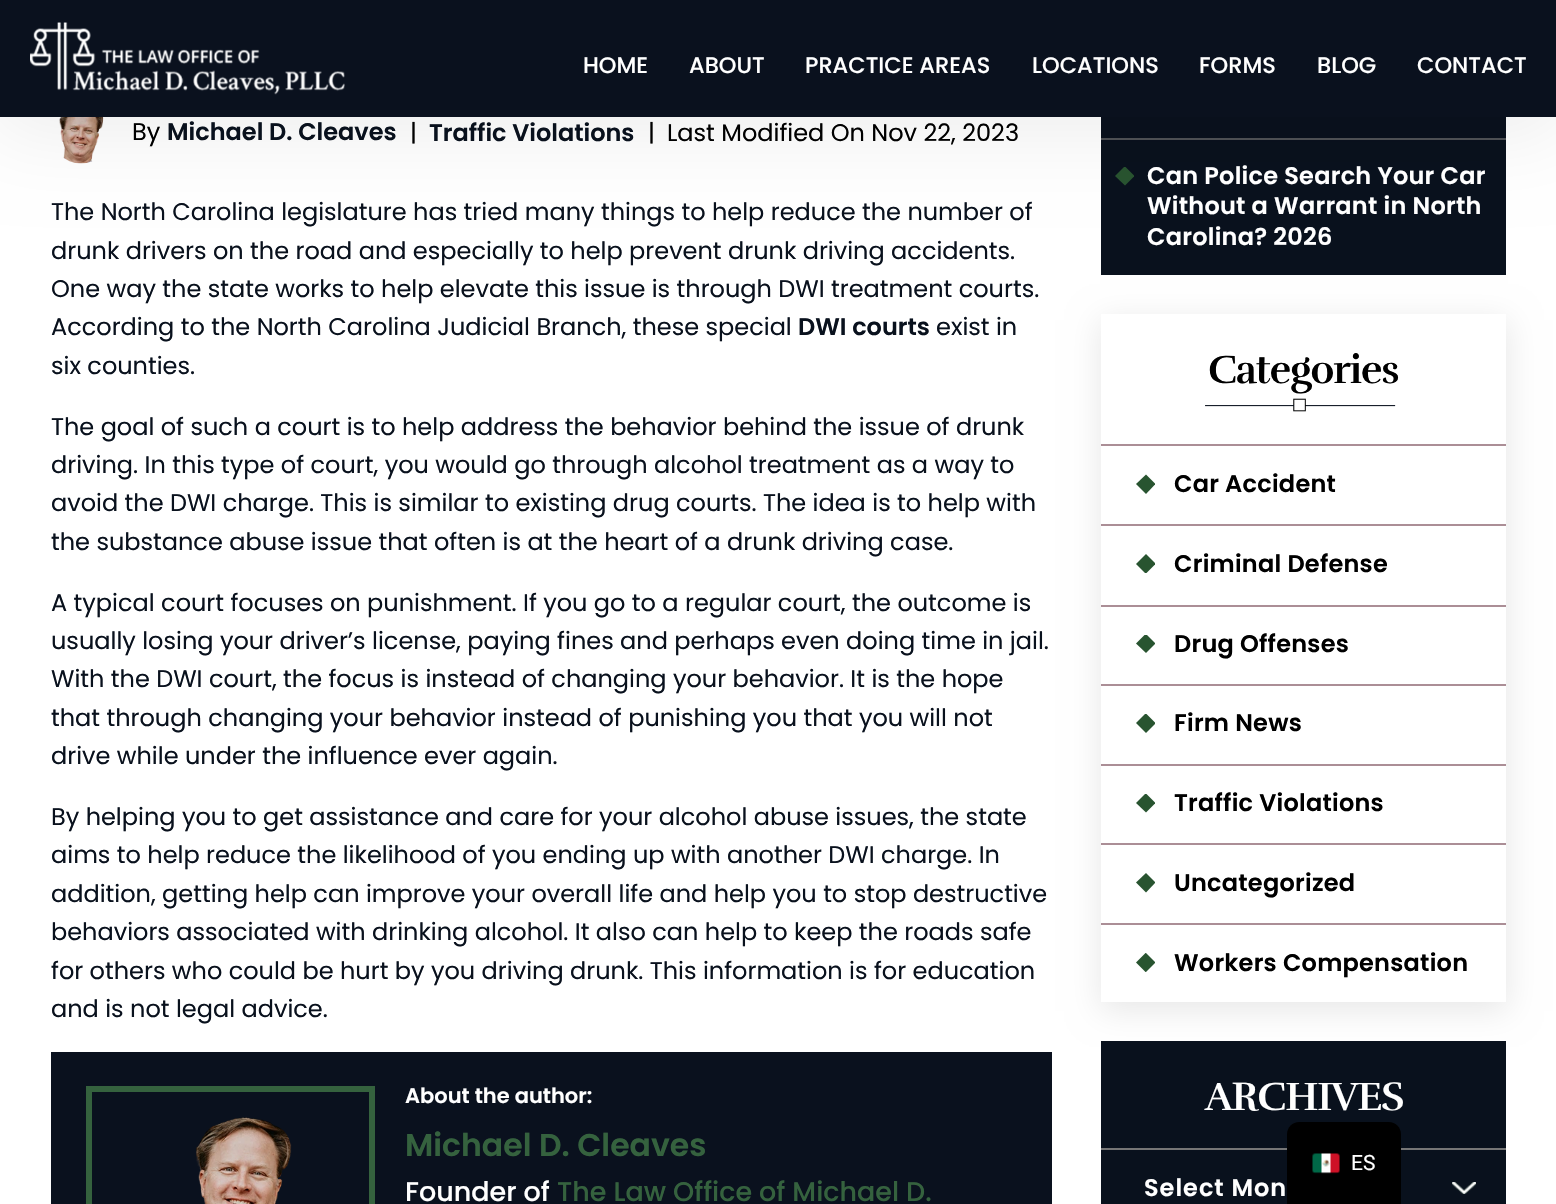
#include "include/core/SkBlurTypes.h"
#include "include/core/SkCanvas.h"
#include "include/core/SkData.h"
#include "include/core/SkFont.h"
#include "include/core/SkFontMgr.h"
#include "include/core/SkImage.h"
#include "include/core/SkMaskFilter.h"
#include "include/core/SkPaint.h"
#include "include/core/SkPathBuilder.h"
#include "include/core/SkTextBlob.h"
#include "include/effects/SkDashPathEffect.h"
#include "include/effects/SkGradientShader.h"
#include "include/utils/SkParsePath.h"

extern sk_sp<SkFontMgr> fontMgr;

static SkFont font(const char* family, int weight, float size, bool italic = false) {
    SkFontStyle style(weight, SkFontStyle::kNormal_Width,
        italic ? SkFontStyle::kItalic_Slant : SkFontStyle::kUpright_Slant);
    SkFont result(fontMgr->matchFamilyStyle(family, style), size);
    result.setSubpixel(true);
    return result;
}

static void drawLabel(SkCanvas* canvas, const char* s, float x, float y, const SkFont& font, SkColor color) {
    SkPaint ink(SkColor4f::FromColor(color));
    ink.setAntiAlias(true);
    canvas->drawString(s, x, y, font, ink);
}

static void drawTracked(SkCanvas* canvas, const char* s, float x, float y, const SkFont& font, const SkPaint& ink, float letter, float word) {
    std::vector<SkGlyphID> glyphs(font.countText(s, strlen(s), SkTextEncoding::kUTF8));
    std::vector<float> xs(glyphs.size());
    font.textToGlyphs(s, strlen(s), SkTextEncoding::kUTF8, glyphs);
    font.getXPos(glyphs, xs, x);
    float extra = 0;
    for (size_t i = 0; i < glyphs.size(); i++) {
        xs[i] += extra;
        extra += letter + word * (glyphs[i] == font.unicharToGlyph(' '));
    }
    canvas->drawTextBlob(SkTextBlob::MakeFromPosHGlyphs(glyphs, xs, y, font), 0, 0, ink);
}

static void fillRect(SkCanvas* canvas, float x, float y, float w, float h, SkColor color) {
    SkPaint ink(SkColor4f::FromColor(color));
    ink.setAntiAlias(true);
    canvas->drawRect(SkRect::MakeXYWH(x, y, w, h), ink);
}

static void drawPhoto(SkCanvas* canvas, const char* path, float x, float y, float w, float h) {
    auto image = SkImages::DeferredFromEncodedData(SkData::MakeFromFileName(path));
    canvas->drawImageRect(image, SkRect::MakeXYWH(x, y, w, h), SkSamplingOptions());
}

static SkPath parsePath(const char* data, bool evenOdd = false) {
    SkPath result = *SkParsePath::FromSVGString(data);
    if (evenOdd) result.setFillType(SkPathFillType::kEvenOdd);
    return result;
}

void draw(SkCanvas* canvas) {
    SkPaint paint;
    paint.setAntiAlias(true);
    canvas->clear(0xFFFFFFFF);
    drawPhoto(canvas, "assets/img2.png", 59, 117, 45, 47);
    fillRect(canvas, 1101, 117, 405, 158, 0xFF09111D);
    fillRect(canvas, 1101, 138, 405, 2, 0xFF505256);
    paint.setColor(0xFF285430);
    canvas->drawPath(parsePath("M1134 176.5L1125 185.5L1115 176L1124 167H1125.5L1134 175.5Z"), paint);
    paint.setColor(0x12000000);
    paint.setMaskFilter(SkMaskFilter::MakeBlur(kNormal_SkBlurStyle, 40.5f));
    canvas->drawRect(SkRect::MakeXYWH(-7, -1, 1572, 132), paint);
    paint.setMaskFilter(nullptr);
    fillRect(canvas, 0, 0, 1556, 117, 0xFF0A111E);
    drawPhoto(canvas, "assets/img1.png", 30, 22, 315, 73);
    SkFont font1 = font("Poppins", 500, 22.5f);
    drawLabel(canvas, "HOME", 583, 73, font1, 0xFFFFFFFF);
    drawLabel(canvas, "ABOUT", 689, 73, font1, 0xFFFFFFFF);
    drawLabel(canvas, "PRACTICE AREAS", 805, 73, font1, 0xFFFFFFFF);
    drawLabel(canvas, "LOCATIONS", 1032, 73, font1, 0xFFFFFFFF);
    drawLabel(canvas, "FORMS", 1199, 73, font1, 0xFFFFFFFF);
    drawLabel(canvas, "BLOG", 1317, 73, font1, 0xFFFFFFFF);
    drawLabel(canvas, "CONTACT", 1417, 73, font1, 0xFFFFFFFF);
    SkFont font2 = font("Poppins", 400, 24);
    drawLabel(canvas, "By", 132, 140, font2, 0xFF000000);
    SkFont font3 = font("Poppins", 600, 24);
    drawLabel(canvas, "Michael D. Cleaves", 167, 140, font3, 0xFF09111D);
    drawLabel(canvas, "|", 410, 141, font2, 0xFF000000);
    drawLabel(canvas, "Traffic Violations", 429, 141, font3, 0xFF09111D);
    drawLabel(canvas, "|", 648, 141, font2, 0xFF000000);
    drawLabel(canvas, "Last Modified On Nov 22, 2023", 667, 141, font2, 0xFF000000);
    drawLabel(canvas, "The North Carolina legislature has tried many things to help reduce the number of", 51, 220, font2, 0xFF09111D);
    drawLabel(canvas, "drunk drivers on the road and especially to help prevent drunk driving accidents.", 51, 259, font2, 0xFF09111D);
    drawLabel(canvas, "One way the state works to help elevate this issue is through DWI treatment courts.", 51, 297, font2, 0xFF09111D);
    drawLabel(canvas, "According to the North Carolina Judicial Branch, these special", 51, 335, font2, 0xFF09111D);
    drawLabel(canvas, "DWI courts", 798, 335, font3, 0xFF09111D);
    drawLabel(canvas, "exist in", 936, 335, font2, 0xFF09111D);
    drawLabel(canvas, "six counties.", 51, 374, font2, 0xFF09111D);
    drawLabel(canvas, "The goal of such a court is to help address the behavior behind the issue of drunk", 51, 435, font2, 0xFF09111D);
    drawLabel(canvas, "driving. In this type of court, you would go through alcohol treatment as a way to", 51, 473, font2, 0xFF09111D);
    drawLabel(canvas, "avoid the DWI charge. This is similar to existing drug courts. The idea is to help with", 51, 511, font2, 0xFF09111D);
    drawLabel(canvas, "the substance abuse issue that often is at the heart of a drunk driving case.", 51, 550, font2, 0xFF09111D);
    drawLabel(canvas, "A typical court focuses on punishment. If you go to a regular court, the outcome is", 51, 611, font2, 0xFF09111D);
    drawLabel(canvas, "usually losing your driver’s license, paying fines and perhaps even doing time in jail.", 51, 649, font2, 0xFF09111D);
    drawLabel(canvas, "With the DWI court, the focus is instead of changing your behavior. It is the hope", 51, 687, font2, 0xFF09111D);
    drawLabel(canvas, "that through changing your behavior instead of punishing you that you will not", 51, 726, font2, 0xFF09111D);
    drawLabel(canvas, "drive while under the influence ever again.", 51, 764, font2, 0xFF09111D);
    drawLabel(canvas, "By helping you to get assistance and care for your alcohol abuse issues, the state", 51, 825, font2, 0xFF09111D);
    drawLabel(canvas, "aims to help reduce the likelihood of you ending up with another DWI charge. In", 51, 863, font2, 0xFF09111D);
    drawLabel(canvas, "addition, getting help can improve your overall life and help you to stop destructive", 51, 902, font2, 0xFF09111D);
    drawLabel(canvas, "behaviors associated with drinking alcohol. It also can help to keep the roads safe", 51, 940, font2, 0xFF09111D);
    drawLabel(canvas, "for others who could be hurt by you driving drunk. This information is for education", 51, 979, font2, 0xFF09111D);
    drawLabel(canvas, "and is not legal advice.", 51, 1017, font2, 0xFF09111D);
    fillRect(canvas, 51, 1052, 1001, 152, 0xFF0A111E);
    paint.setStroke(true);
    paint.setStrokeWidth(6);
    paint.setColor(0xFF35623E);
    canvas->drawRect(SkRect::MakeXYWH(89, 1089, 283, 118), paint);
    drawPhoto(canvas, "assets/img3.png", 196, 1117, 96, 87);
    SkFont font4 = font("Poppins", 600, 21);
    drawLabel(canvas, "About the author:", 405, 1103, font4, 0xFFFFFFFF);
    SkFont font5 = font("Poppins", 600, 31.5f);
    drawLabel(canvas, "Michael D. Cleaves", 405, 1156, font5, 0xFF35623E);
    SkFont font6 = font("Poppins", 500, 27);
    drawLabel(canvas, "Founder of", 405, 1201, font6, 0xFFFFFFFF);
    drawLabel(canvas, "The Law Office of Michael D.", 557, 1201, font6, 0xFF35623E);
    paint.setStroke(false);
    paint.setColor(0xFFFFFFFF);
    drawTracked(canvas, "Can Police Search Your Car", 1147, 184, font3, paint, 0.25f, 0);
    drawTracked(canvas, "Without a Warrant in North", 1147, 214, font3, paint, 0.25f, 0);
    drawTracked(canvas, "Carolina? 2026", 1147, 245, font3, paint, 0.25f, 0);
    canvas->save();
    canvas->clipPath(parsePath("M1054 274H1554V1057H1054ZM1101 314H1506V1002H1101Z", true), true);
    paint.setColor(0x17000000);
    paint.setMaskFilter(SkMaskFilter::MakeBlur(kNormal_SkBlurStyle, 15));
    canvas->drawRect(SkRect::MakeXYWH(1100, 320, 408, 691), paint);
    paint.setMaskFilter(nullptr);
    canvas->restore();
    SkFont font7 = font("Rufina", 700, 40.5f);
    paint.setColor(0xFF000000);
    drawTracked(canvas, "Categories", 1208, 383, font7, paint, -1.25f, 0);
    drawPhoto(canvas, "assets/img4.png", 1205, 398, 191, 14);
    fillRect(canvas, 1101, 444, 405, 2, 0xFFAB8E96);
    paint.setColor(0xFF285430);
    canvas->drawPath(parsePath("M1146 474.5L1155 483.5V484.5L1146 494L1136 484Z"), paint);
    paint.setColor(0xFF000000);
    drawTracked(canvas, "Car Accident", 1174, 492, font3, paint, 0.25f, 0);
    fillRect(canvas, 1101, 524, 405, 2, 0xFFAB8E96);
    paint.setColor(0xFF285430);
    canvas->drawPath(parsePath("M1146 554L1155 563V564.5L1146.5 573H1145L1136 564Z"), paint);
    paint.setColor(0xFF000000);
    drawTracked(canvas, "Criminal Defense", 1174, 572, font3, paint, 0.25f, 0);
    fillRect(canvas, 1101, 605, 405, 2, 0xFFAB8E96);
    paint.setColor(0xFF285430);
    canvas->drawPath(parsePath("M1155 644L1146 653L1136 643.5L1144.5 635H1147L1155 643Z"), paint);
    paint.setColor(0xFF000000);
    drawTracked(canvas, "Drug Offenses", 1174, 652, font3, paint, 0.25f, 0);
    fillRect(canvas, 1101, 684, 405, 2, 0xFFAB8E96);
    paint.setColor(0xFF285430);
    canvas->drawPath(parsePath("M1155 724L1146 733L1136 723L1145 714H1146.5L1155 722.5Z"), paint);
    paint.setColor(0xFF000000);
    drawTracked(canvas, "Firm News", 1174, 731, font3, paint, 0.25f, 0);
    fillRect(canvas, 1101, 764, 405, 2, 0xFFAB8E96);
    paint.setColor(0xFF285430);
    canvas->drawPath(parsePath("M1155 803.5L1146 812.5L1136 803L1145 794H1146.5L1155 802.5Z"), paint);
    paint.setColor(0xFF000000);
    drawTracked(canvas, "Traffic Violations", 1174, 811, font3, paint, 0.25f, 0);
    fillRect(canvas, 1101, 843, 405, 2, 0xFFAB8E96);
    paint.setColor(0xFF285430);
    canvas->drawPath(parsePath("M1155 883L1146 892.5L1136 882.5L1146 873L1155 882Z"), paint);
    paint.setColor(0xFF000000);
    drawTracked(canvas, "Uncategorized", 1174, 891, font3, paint, 0.25f, 0);
    fillRect(canvas, 1101, 923, 405, 2, 0xFFAB8E96);
    paint.setColor(0xFF285430);
    canvas->drawPath(parsePath("M1145.5 972L1136 962.5L1145.5 953H1146L1155 962V963L1146 972Z"), paint);
    paint.setColor(0xFF000000);
    drawTracked(canvas, "Workers Compensation", 1174, 971, font3, paint, 0.25f, 0);
    fillRect(canvas, 1101, 1041, 405, 163, 0xFF09111D);
    paint.setColor(0xFFFFFFFF);
    drawTracked(canvas, "ARCHIVES", 1205, 1110, font7, paint, -1.25f, 0);
    drawPhoto(canvas, "assets/img5.png", 1452, 1182, 24, 12);
    fillRect(canvas, 1101, 1148, 405, 2, 0xFF767676);
    drawTracked(canvas, "Select Mon", 1144, 1196, font3, paint, 1, 0);
    paint.setColor(0xFF000000);
    canvas->drawPath(parsePath("M1299 1122H1389C1395.5 1122 1401 1127.5 1401 1134V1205H1287V1134C1287 1127.5 1292.5 1122 1299 1122Z"), paint);
    drawPhoto(canvas, "assets/img6.png", 1312, 1153, 28, 21);
    SkFont font8 = font("Roboto", 400, 21);
    drawLabel(canvas, "ES", 1351, 1170, font8, 0xFFFFFFFF);
}
